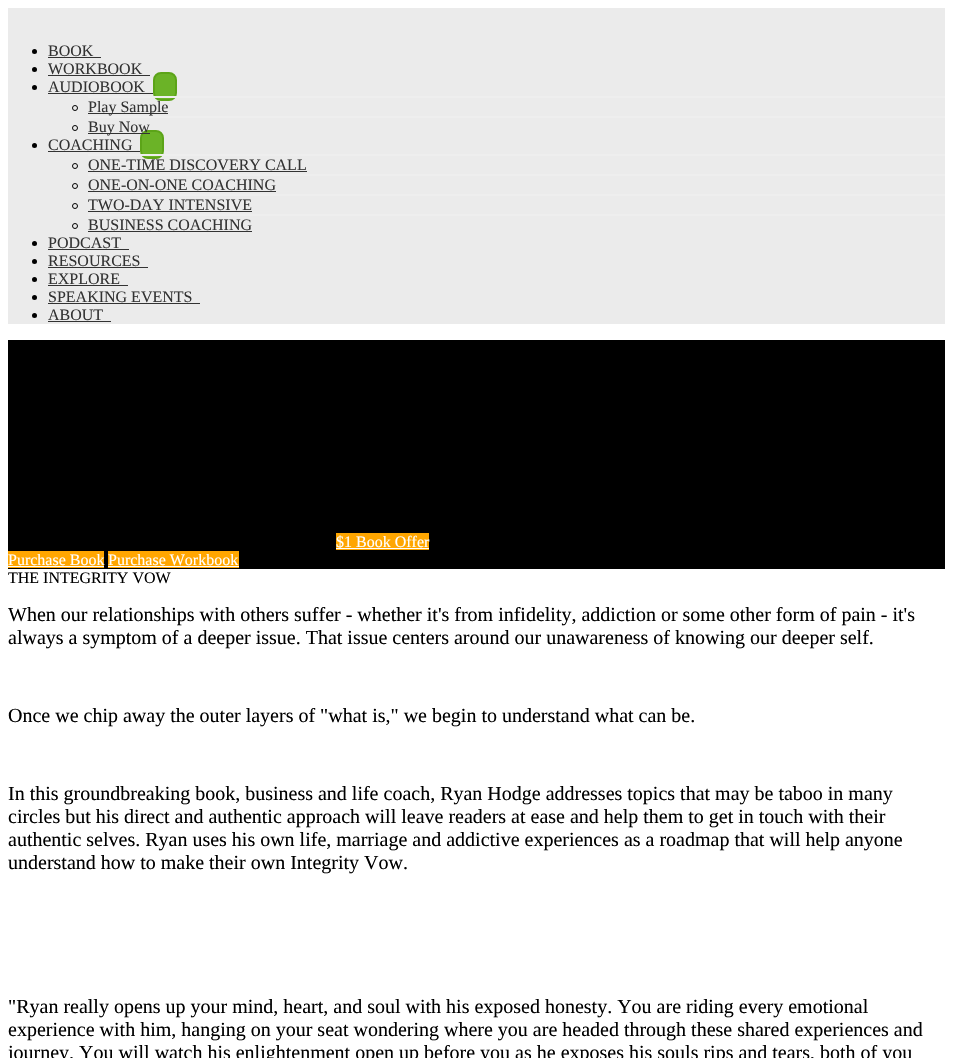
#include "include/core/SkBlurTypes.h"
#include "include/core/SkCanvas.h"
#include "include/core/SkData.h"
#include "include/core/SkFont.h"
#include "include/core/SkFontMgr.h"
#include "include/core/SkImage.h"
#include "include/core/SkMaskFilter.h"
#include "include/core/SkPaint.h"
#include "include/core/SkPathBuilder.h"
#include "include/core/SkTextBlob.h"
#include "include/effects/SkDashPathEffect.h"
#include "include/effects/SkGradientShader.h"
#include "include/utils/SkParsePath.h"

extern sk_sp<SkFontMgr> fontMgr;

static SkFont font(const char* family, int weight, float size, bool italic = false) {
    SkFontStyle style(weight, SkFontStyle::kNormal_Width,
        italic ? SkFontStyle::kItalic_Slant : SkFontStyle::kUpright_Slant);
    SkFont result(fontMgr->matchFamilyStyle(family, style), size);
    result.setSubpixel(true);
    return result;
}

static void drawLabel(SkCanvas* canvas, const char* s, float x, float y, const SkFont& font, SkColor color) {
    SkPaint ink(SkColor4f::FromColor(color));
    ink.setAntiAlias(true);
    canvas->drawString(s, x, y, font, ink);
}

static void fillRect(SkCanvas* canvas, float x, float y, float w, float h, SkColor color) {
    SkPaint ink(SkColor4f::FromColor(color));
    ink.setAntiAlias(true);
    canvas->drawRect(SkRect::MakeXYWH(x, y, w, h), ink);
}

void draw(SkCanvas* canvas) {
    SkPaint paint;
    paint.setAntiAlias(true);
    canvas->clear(0xFFFFFFFF);
    fillRect(canvas, 8, 8, 937, 316, 0xFFEBEBEB);
    paint.setColor(0xFF000000);
    canvas->drawCircle(34.5f, 51.5f, 2.5f, paint);
    SkFont font1 = font("Liberation Serif", 400, 16);
    drawLabel(canvas, "BOOK", 48, 56, font1, 0xFF333333);
    fillRect(canvas, 48, 57, 53, 1, 0xFF333333);
    canvas->drawCircle(34.5f, 69.5f, 2.5f, paint);
    drawLabel(canvas, "WORKBOOK", 48, 74, font1, 0xFF333333);
    fillRect(canvas, 48, 75, 102, 1, 0xFF333333);
    canvas->drawCircle(34.5f, 87.5f, 2.5f, paint);
    drawLabel(canvas, "AUDIOBOOK", 48, 92, font1, 0xFF333333);
    fillRect(canvas, 48, 93, 105, 1, 0xFF333333);
    paint.setColor(0xFF6BB327);
    canvas->drawRoundRect(SkRect::MakeXYWH(154, 73, 22, 27), 7, 7, paint);
    paint.setStroke(true);
    paint.setStrokeWidth(2);
    paint.setColor(0xFF5CA418);
    canvas->drawRoundRect(SkRect::MakeXYWH(154, 73, 22, 27), 7, 7, paint);
    fillRect(canvas, 88, 96, 857, 2, 0xFFEEEEEE);
    paint.setStrokeWidth(1);
    paint.setColor(0xFF000000);
    canvas->drawCircle(75, 108, 2.5f, paint);
    fillRect(canvas, 88, 113, 80, 1, 0xFF333333);
    drawLabel(canvas, "Play Sample", 88, 112, font1, 0xFF333333);
    fillRect(canvas, 88, 116, 857, 2, 0xFFEEEEEE);
    canvas->drawCircle(75, 128, 2.5f, paint);
    paint.setStroke(false);
    paint.setColor(0xFF6BB327);
    canvas->drawRoundRect(SkRect::MakeXYWH(141, 131, 22, 27), 7, 7, paint);
    paint.setStroke(true);
    paint.setStrokeWidth(2);
    paint.setColor(0xFF5CA418);
    canvas->drawRoundRect(SkRect::MakeXYWH(141, 131, 22, 27), 7, 7, paint);
    fillRect(canvas, 88, 133, 62, 1, 0xFF333333);
    drawLabel(canvas, "Buy Now", 88, 132, font1, 0xFF333333);
    paint.setStroke(false);
    paint.setColor(0xFF000000);
    canvas->drawCircle(34.5f, 145.5f, 2.5f, paint);
    drawLabel(canvas, "COACHING", 48, 150, font1, 0xFF333333);
    fillRect(canvas, 48, 151, 92, 1, 0xFF333333);
    fillRect(canvas, 88, 154, 857, 2, 0xFFEEEEEE);
    paint.setStroke(true);
    paint.setStrokeWidth(1);
    canvas->drawCircle(75, 166, 2.5f, paint);
    drawLabel(canvas, "ONE-TIME DISCOVERY CALL", 88, 170, font1, 0xFF333333);
    fillRect(canvas, 88, 171, 219, 1, 0xFF333333);
    fillRect(canvas, 88, 174, 857, 2, 0xFFEEEEEE);
    canvas->drawCircle(75, 186, 2.5f, paint);
    drawLabel(canvas, "ONE-ON-ONE COACHING", 88, 190, font1, 0xFF333333);
    fillRect(canvas, 88, 191, 188, 1, 0xFF333333);
    fillRect(canvas, 88, 194, 857, 2, 0xFFEEEEEE);
    canvas->drawCircle(75, 206, 2.5f, paint);
    drawLabel(canvas, "TWO-DAY INTENSIVE", 88, 210, font1, 0xFF333333);
    fillRect(canvas, 88, 211, 164, 1, 0xFF333333);
    fillRect(canvas, 88, 214, 857, 2, 0xFFEEEEEE);
    canvas->drawCircle(75, 226, 2.5f, paint);
    drawLabel(canvas, "BUSINESS COACHING", 88, 230, font1, 0xFF333333);
    fillRect(canvas, 88, 231, 164, 1, 0xFF333333);
    paint.setStroke(false);
    canvas->drawCircle(34.5f, 243.5f, 2.5f, paint);
    drawLabel(canvas, "PODCAST", 48, 248, font1, 0xFF333333);
    fillRect(canvas, 48, 249, 81, 1, 0xFF333333);
    canvas->drawCircle(34.5f, 261.5f, 2.5f, paint);
    drawLabel(canvas, "RESOURCES", 48, 266, font1, 0xFF333333);
    fillRect(canvas, 48, 267, 100, 1, 0xFF333333);
    canvas->drawCircle(34.5f, 279.5f, 2.5f, paint);
    drawLabel(canvas, "EXPLORE", 48, 284, font1, 0xFF333333);
    fillRect(canvas, 48, 285, 80, 1, 0xFF333333);
    canvas->drawCircle(34.5f, 297.5f, 2.5f, paint);
    drawLabel(canvas, "SPEAKING EVENTS", 48, 302, font1, 0xFF333333);
    fillRect(canvas, 48, 303, 152, 1, 0xFF333333);
    canvas->drawCircle(34.5f, 315.5f, 2.5f, paint);
    drawLabel(canvas, "ABOUT", 48, 320, font1, 0xFF333333);
    fillRect(canvas, 48, 321, 63, 1, 0xFF333333);
    fillRect(canvas, 8, 340, 937, 229, 0xFF000000);
    fillRect(canvas, 336, 533, 93, 17, 0xFFFFA600);
    fillRect(canvas, 336, 548, 93, 1, 0xFFFFFFFF);
    drawLabel(canvas, "$1 Book Offer", 336, 547, font1, 0xFFFFFFFF);
    fillRect(canvas, 8, 551, 96, 17, 0xFFFFA600);
    drawLabel(canvas, "Purchase Book", 8, 565, font1, 0xFFFFFFFF);
    fillRect(canvas, 8, 566, 96, 1, 0xFFFFFFFF);
    fillRect(canvas, 108, 551, 131, 17, 0xFFFFA600);
    drawLabel(canvas, "Purchase Workbook", 108, 565, font1, 0xFFFFFFFF);
    fillRect(canvas, 108, 566, 131, 1, 0xFFFFFFFF);
    drawLabel(canvas, "THE INTEGRITY VOW", 8, 583, font1, 0xFF000000);
    SkFont font2 = font("Liberation Serif", 400, 20);
    drawLabel(canvas, "When our relationships with others suffer - whether it's from infidelity, addiction or some other form of pain - it's", 8, 621, font2, 0xFF000000);
    drawLabel(canvas, "always a symptom of a deeper issue. That issue centers around our unawareness of knowing our deeper self.", 8, 644, font2, 0xFF000000);
    drawLabel(canvas, "Once we chip away the outer layers of \"what is,\" we begin to understand what can be.", 8, 722, font2, 0xFF000000);
    drawLabel(canvas, "In this groundbreaking book, business and life coach, Ryan Hodge addresses topics that may be taboo in many", 8, 800, font2, 0xFF000000);
    drawLabel(canvas, "circles but his direct and authentic approach will leave readers at ease and help them to get in touch with their", 8, 823, font2, 0xFF000000);
    drawLabel(canvas, "authentic selves. Ryan uses his own life, marriage and addictive experiences as a roadmap that will help anyone", 8, 846, font2, 0xFF000000);
    drawLabel(canvas, "understand how to make their own Integrity Vow.", 8, 869, font2, 0xFF000000);
    drawLabel(canvas, "\"Ryan really opens up your mind, heart, and soul with his exposed honesty. You are riding every emotional", 8, 1013, font2, 0xFF000000);
    drawLabel(canvas, "experience with him, hanging on your seat wondering where you are headed through these shared experiences and", 8, 1036, font2, 0xFF000000);
    drawLabel(canvas, "journey. You will watch his enlightenment open up before you as he exposes his souls rips and tears, both of you", 8, 1059, font2, 0xFF000000);
}
